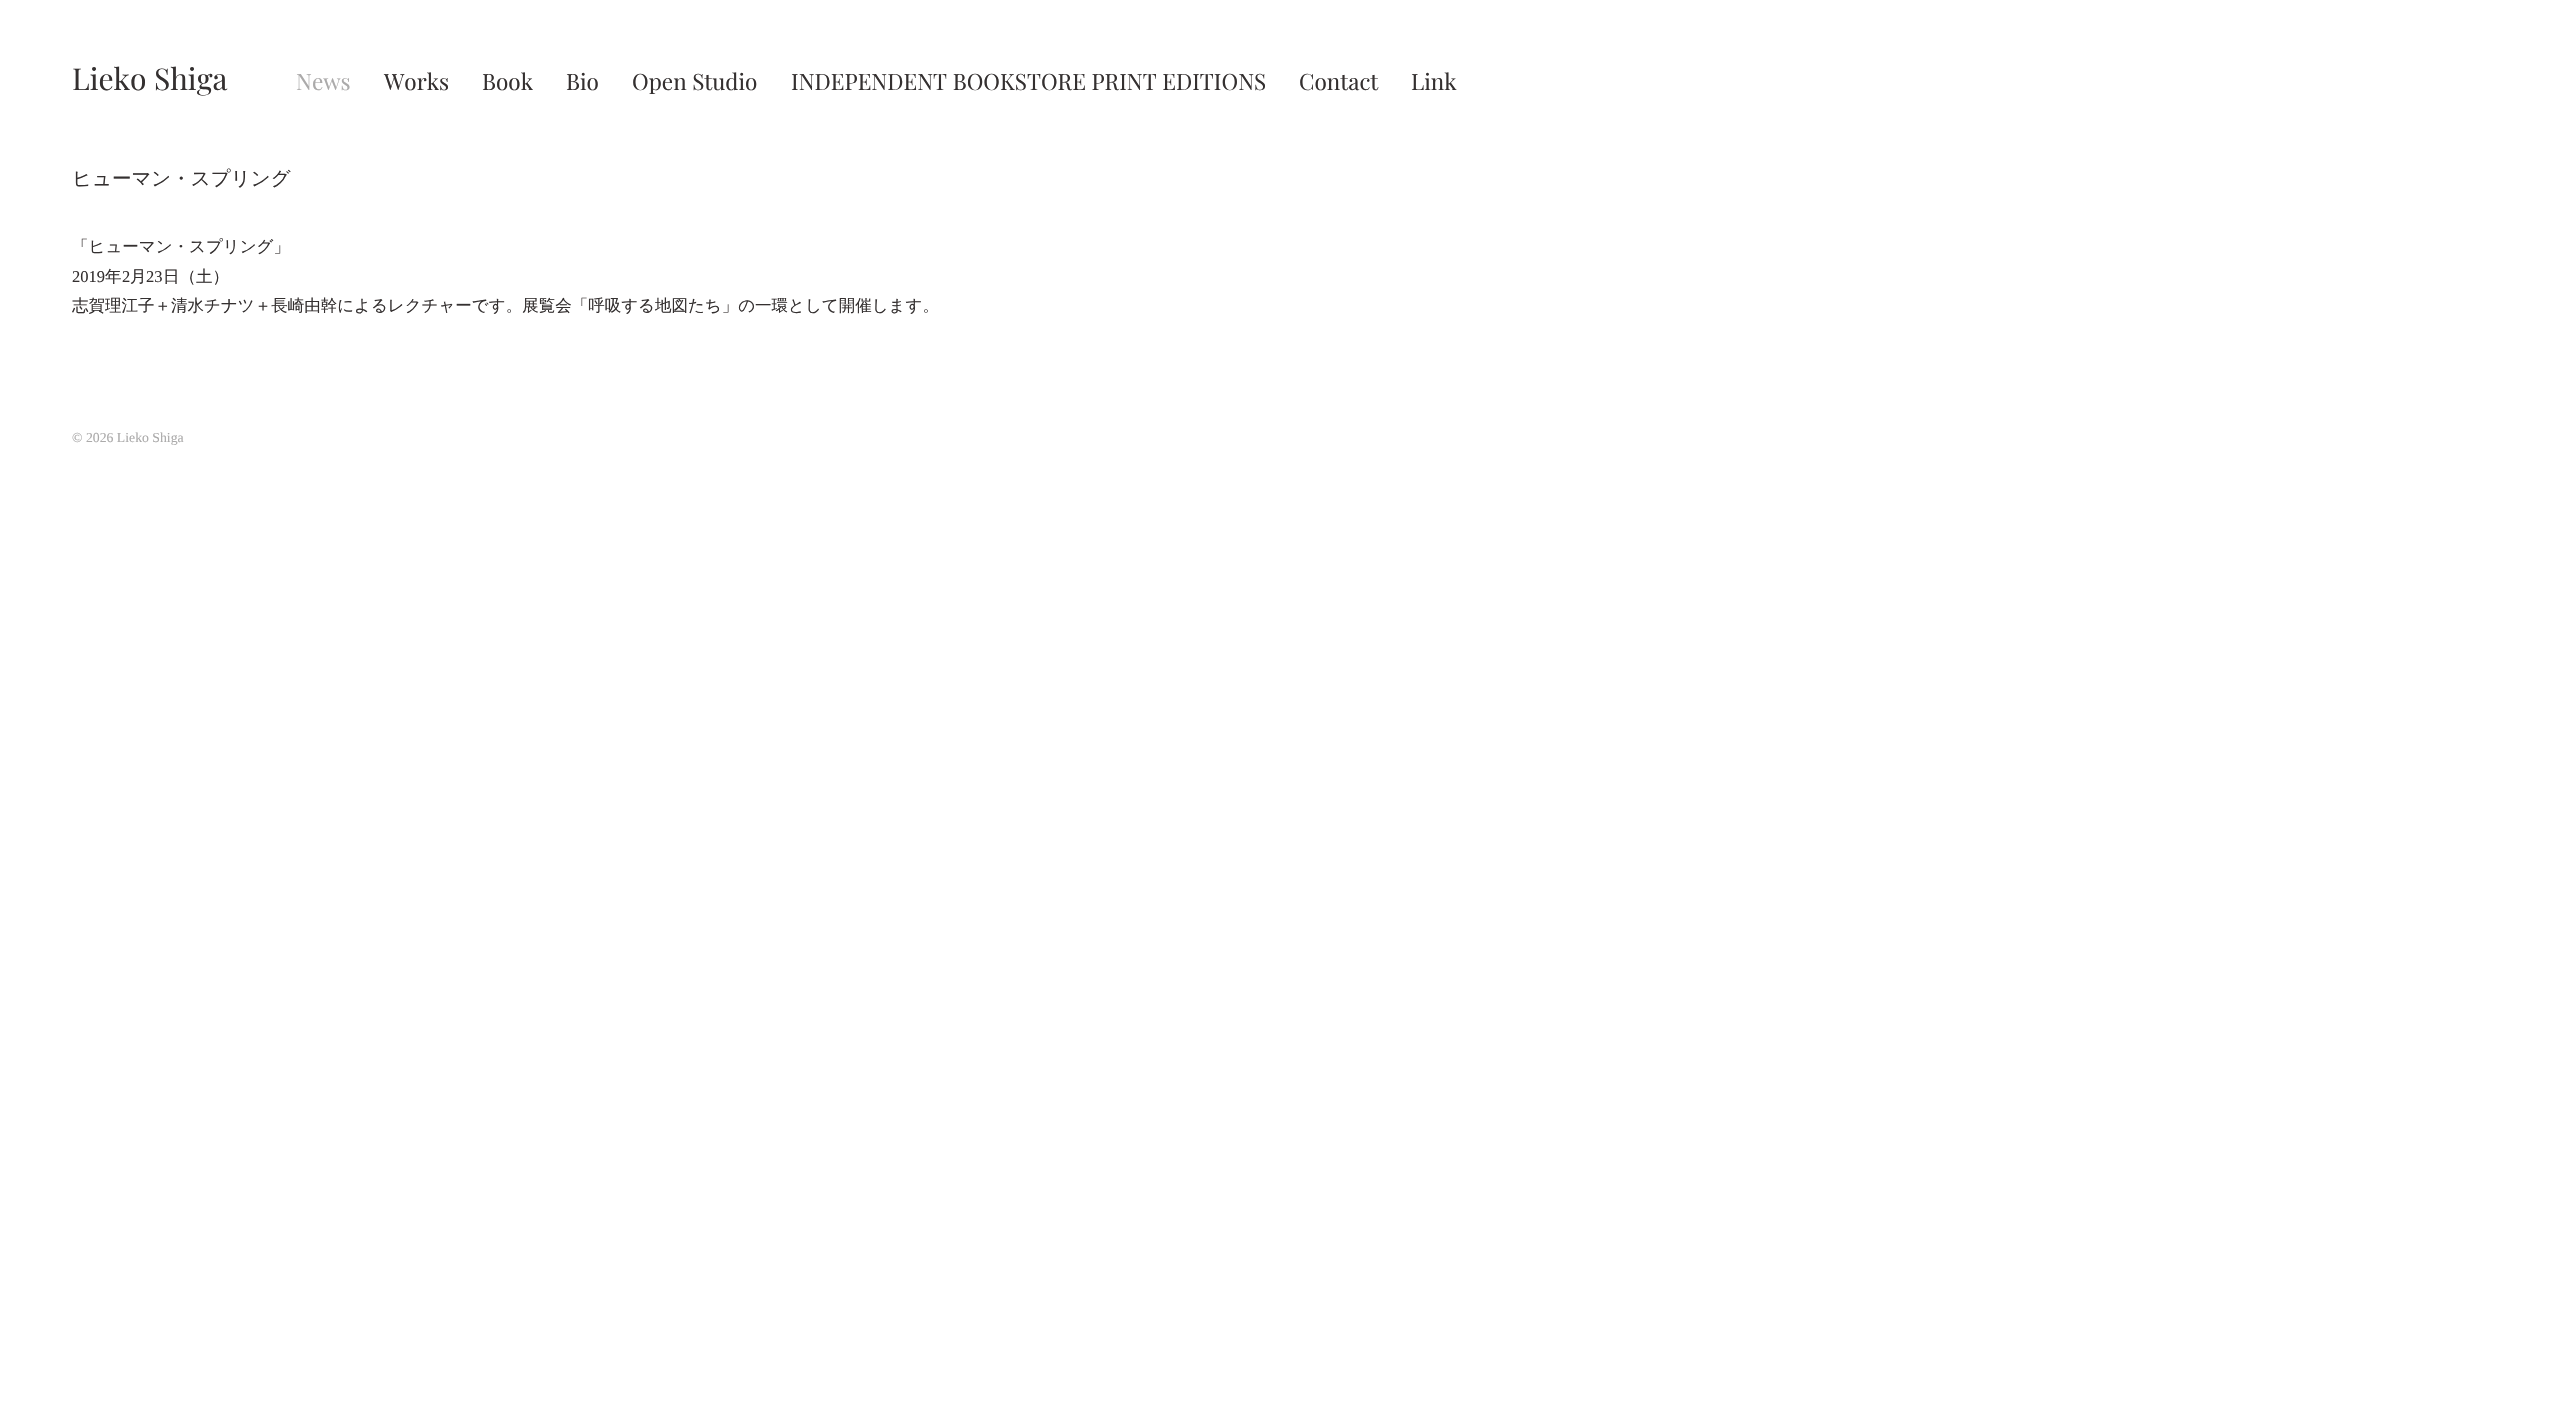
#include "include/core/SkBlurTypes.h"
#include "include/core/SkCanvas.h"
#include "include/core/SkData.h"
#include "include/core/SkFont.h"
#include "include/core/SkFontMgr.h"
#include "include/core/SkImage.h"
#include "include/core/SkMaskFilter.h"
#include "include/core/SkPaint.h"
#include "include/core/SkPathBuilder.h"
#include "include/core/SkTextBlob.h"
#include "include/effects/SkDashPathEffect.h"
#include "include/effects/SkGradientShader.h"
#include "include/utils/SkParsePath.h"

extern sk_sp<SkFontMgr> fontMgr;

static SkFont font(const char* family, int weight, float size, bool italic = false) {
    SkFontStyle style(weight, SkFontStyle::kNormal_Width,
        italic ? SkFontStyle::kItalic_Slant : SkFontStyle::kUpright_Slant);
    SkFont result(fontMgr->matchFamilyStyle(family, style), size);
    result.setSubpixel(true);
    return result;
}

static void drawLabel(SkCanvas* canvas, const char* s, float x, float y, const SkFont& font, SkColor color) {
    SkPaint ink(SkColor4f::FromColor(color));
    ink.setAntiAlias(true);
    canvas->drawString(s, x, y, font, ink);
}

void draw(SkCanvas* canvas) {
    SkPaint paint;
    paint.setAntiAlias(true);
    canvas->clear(0xFFFFFFFF);
    SkFont font1 = font("Playfair Display", 400, 30);
    drawLabel(canvas, "Lieko Shiga", 72, 90, font1, 0xFF343030);
    SkFont font2 = font("Playfair Display", 400, 22.5f);
    drawLabel(canvas, "News", 296, 90, font2, 0xFFABAAAA);
    drawLabel(canvas, "Works", 384, 90, font2, 0xFF343030);
    drawLabel(canvas, "Book", 482, 90, font2, 0xFF343030);
    drawLabel(canvas, "Bio", 566, 90, font2, 0xFF343030);
    drawLabel(canvas, "Open Studio", 632, 90, font2, 0xFF343030);
    drawLabel(canvas, "INDEPENDENT BOOKSTORE PRINT EDITIONS", 791, 90, font2, 0xFF343030);
    drawLabel(canvas, "Contact", 1299, 90, font2, 0xFF343030);
    drawLabel(canvas, "Link", 1411, 90, font2, 0xFF343030);
    SkFont font3 = font("WenQuanYi Zen Hei", 500, 19.5f);
    drawLabel(canvas, "ヒューマン・スプリング", 72, 185, font3, 0xFF343030);
    SkFont font4 = font("WenQuanYi Zen Hei", 500, 16.5f);
    drawLabel(canvas, "「ヒューマン・スプリング」", 72, 252, font4, 0xFF343030);
    SkFont font5 = font("Liberation Serif", 400, 16.5f);
    drawLabel(canvas, "2019", 72, 282, font5, 0xFF343030);
    drawLabel(canvas, "年", 105, 282, font4, 0xFF343030);
    drawLabel(canvas, "2", 122, 282, font5, 0xFF343030);
    drawLabel(canvas, "月", 130, 282, font4, 0xFF343030);
    drawLabel(canvas, "23", 146, 282, font5, 0xFF343030);
    drawLabel(canvas, "日（土）", 163, 282, font4, 0xFF343030);
    drawLabel(canvas, "志賀理江子＋清水チナツ＋長崎由幹によるレクチャーです。展覧会「呼吸する地図たち」の一環として開催します。", 72, 311, font4, 0xFF343030);
    SkFont font6 = font("Liberation Serif", 400, 13.75f);
    drawLabel(canvas, "© 2026 Lieko Shiga", 72, 442, font6, 0xFFABAAAA);
}
